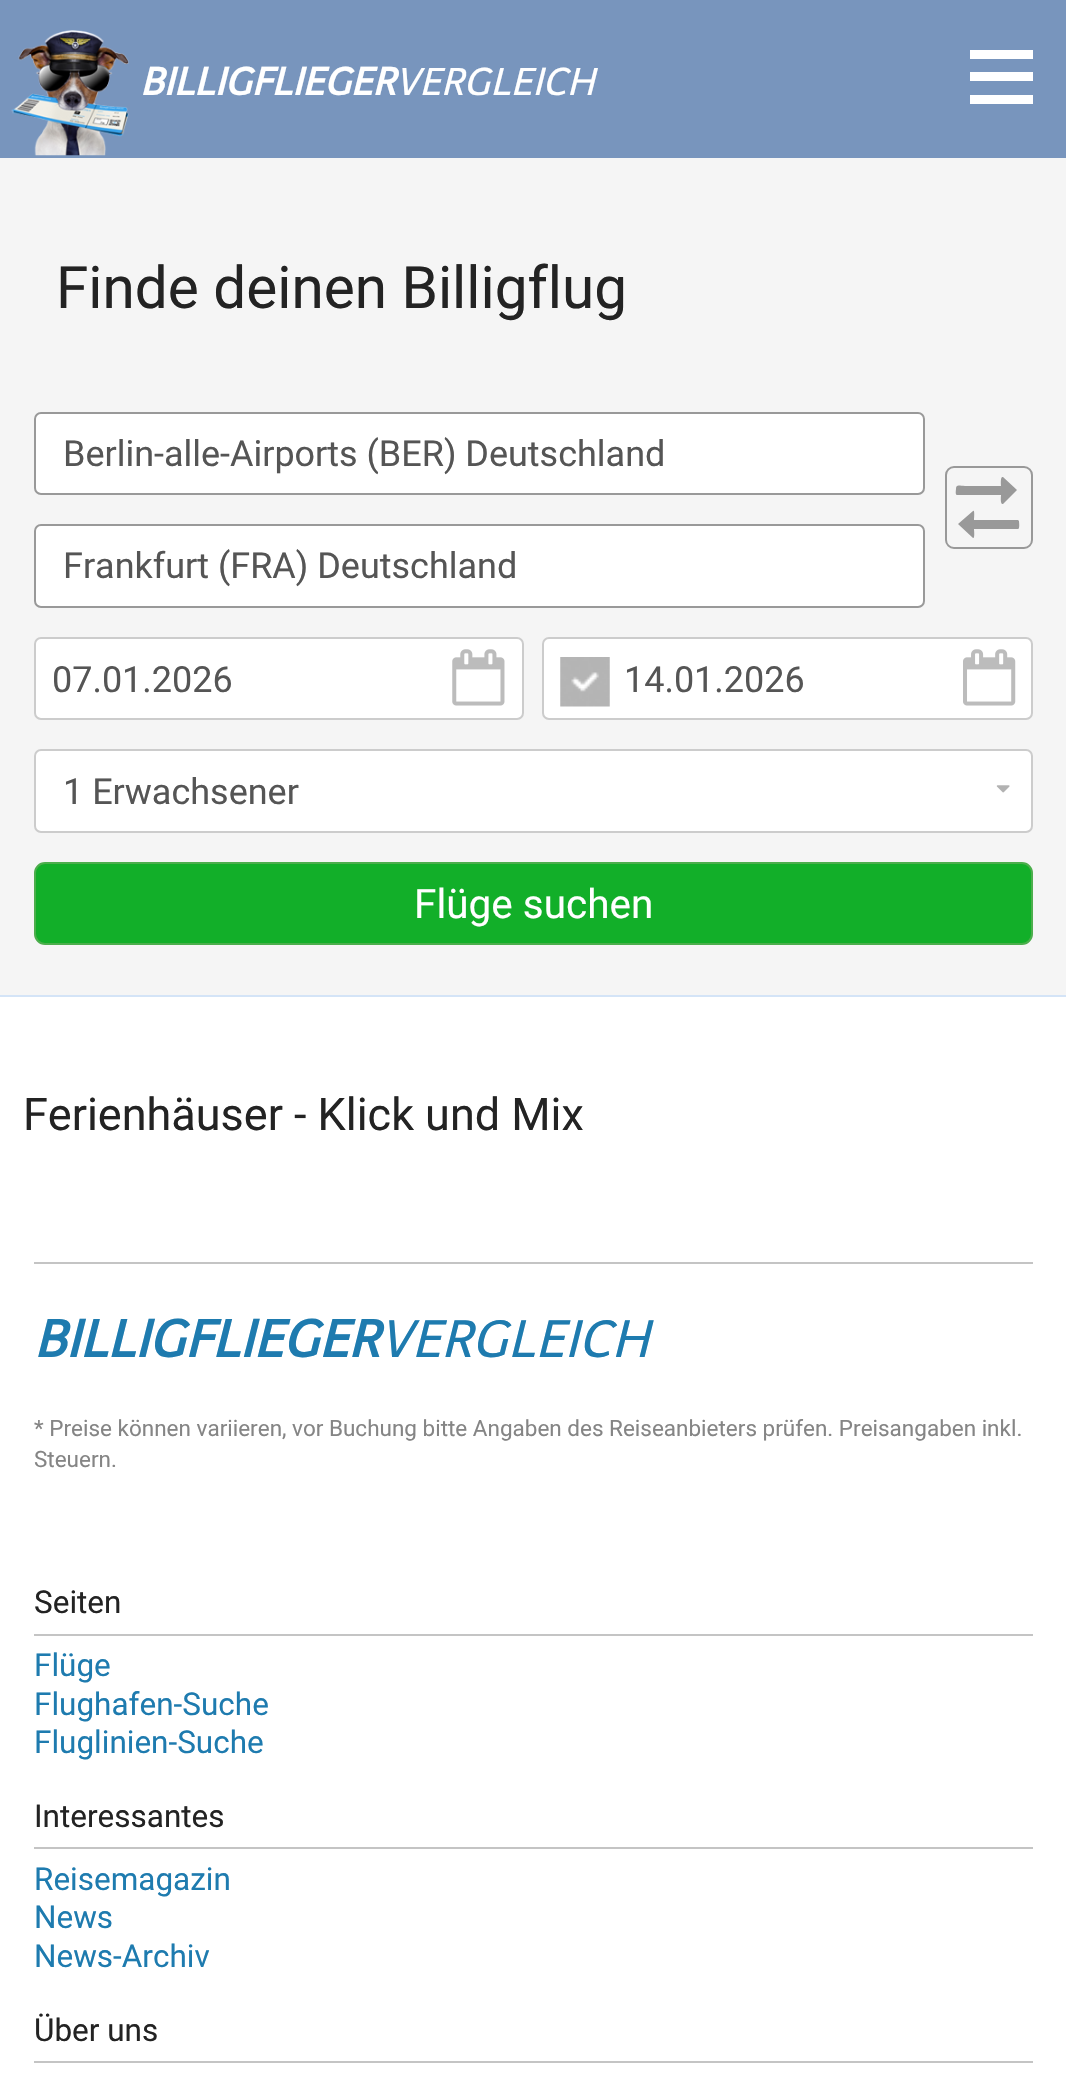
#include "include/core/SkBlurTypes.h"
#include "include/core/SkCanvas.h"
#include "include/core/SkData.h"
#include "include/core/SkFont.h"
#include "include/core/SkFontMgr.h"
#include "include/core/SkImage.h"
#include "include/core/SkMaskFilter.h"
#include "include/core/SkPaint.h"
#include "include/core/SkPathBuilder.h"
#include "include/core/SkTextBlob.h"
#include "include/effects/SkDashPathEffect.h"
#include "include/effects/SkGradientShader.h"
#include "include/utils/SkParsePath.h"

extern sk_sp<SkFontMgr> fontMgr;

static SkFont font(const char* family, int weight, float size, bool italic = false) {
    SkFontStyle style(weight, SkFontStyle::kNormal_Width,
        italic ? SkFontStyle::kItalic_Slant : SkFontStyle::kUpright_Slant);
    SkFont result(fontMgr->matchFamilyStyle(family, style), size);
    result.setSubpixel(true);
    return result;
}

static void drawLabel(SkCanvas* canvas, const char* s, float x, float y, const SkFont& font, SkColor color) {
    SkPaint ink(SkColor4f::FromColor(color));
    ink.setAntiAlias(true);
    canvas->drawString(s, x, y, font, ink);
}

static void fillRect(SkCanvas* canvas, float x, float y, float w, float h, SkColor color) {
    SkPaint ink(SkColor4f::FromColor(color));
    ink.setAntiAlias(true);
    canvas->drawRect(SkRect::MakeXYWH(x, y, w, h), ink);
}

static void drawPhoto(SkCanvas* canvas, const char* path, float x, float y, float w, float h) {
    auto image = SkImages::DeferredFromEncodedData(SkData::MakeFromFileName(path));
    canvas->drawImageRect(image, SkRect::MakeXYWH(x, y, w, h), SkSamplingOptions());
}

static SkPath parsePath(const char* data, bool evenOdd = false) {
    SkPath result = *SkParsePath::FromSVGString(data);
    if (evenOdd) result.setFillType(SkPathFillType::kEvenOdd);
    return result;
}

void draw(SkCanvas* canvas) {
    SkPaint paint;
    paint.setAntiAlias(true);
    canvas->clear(0xFFFFFFFF);
    fillRect(canvas, 0, 0, 1066, 158, 0xFF7895BD);
    drawPhoto(canvas, "assets/img1.png", 11, 30, 118, 126);
    SkFont font1 = font("Telex", 700, 38.25f, true);
    drawLabel(canvas, "BILLIGFLIEGER", 140, 95, font1, 0xFFFFFFFF);
    SkFont font2 = font("Telex", 400, 38.25f, true);
    drawLabel(canvas, "VERGLEICH", 395, 95, font2, 0xFFFFFFFF);
    fillRect(canvas, 970, 72, 63, 9, 0xFFFFFFFF);
    fillRect(canvas, 970, 50, 63, 9, 0xFFFFFFFF);
    fillRect(canvas, 970, 95, 63, 9, 0xFFFFFFFF);
    fillRect(canvas, 0, 158, 1066, 837, 0xFFF5F5F5);
    fillRect(canvas, 0, 995, 1066, 2, 0xFFD4E4F7);
    SkFont font3 = font("Roboto", 400, 58.5f);
    drawLabel(canvas, "Finde deinen Billigflug", 56, 308, font3, 0xFF232323);
    paint.setColor(0xFFFFFFFF);
    canvas->drawRoundRect(SkRect::MakeXYWH(35, 413, 889, 81), 6, 6, paint);
    paint.setStroke(true);
    paint.setStrokeWidth(2);
    paint.setColor(0xFF999999);
    canvas->drawRoundRect(SkRect::MakeXYWH(35, 413, 889, 81), 6, 6, paint);
    SkFont font4 = font("Roboto", 400, 36);
    drawLabel(canvas, "Berlin-alle-Airports (BER) Deutschland", 63, 466, font4, 0xFF555555);
    canvas->drawRoundRect(SkRect::MakeXYWH(946, 467, 86, 81), 8, 8, paint);
    paint.setStroke(false);
    canvas->drawPath(parsePath("M1017 490L1003 504C1000 505 1001 496 1001 495H957C955 495 956 490 956 489C956 484 959 486 965 486H1001C1001 485 1000 476 1003 477Z"), paint);
    canvas->drawPath(parsePath("M1019 521C1019 522 1020 529 1018 529H974C974 530 975 539 973 538L958 524L973 511C975 509 974 519 974 520H1018Z"), paint);
    paint.setColor(0xFFFFFFFF);
    canvas->drawRoundRect(SkRect::MakeXYWH(35, 525, 889, 82), 6, 6, paint);
    paint.setStroke(true);
    paint.setColor(0xFF999999);
    canvas->drawRoundRect(SkRect::MakeXYWH(35, 525, 889, 82), 6, 6, paint);
    drawLabel(canvas, "Frankfurt (FRA) Deutschland", 63, 578, font4, 0xFF555555);
    paint.setStroke(false);
    paint.setColor(0xFFFFFFFF);
    canvas->drawRoundRect(SkRect::MakeXYWH(35, 638, 488, 81), 6, 6, paint);
    paint.setStroke(true);
    paint.setColor(0xFFCCCCCC);
    canvas->drawRoundRect(SkRect::MakeXYWH(35, 638, 488, 81), 6, 6, paint);
    drawLabel(canvas, "07.01.2026", 52, 692, font4, 0xFF555555);
    drawPhoto(canvas, "assets/img2.png", 452, 649, 53, 57);
    paint.setStroke(false);
    paint.setColor(0xFFFFFFFF);
    canvas->drawRoundRect(SkRect::MakeXYWH(543, 638, 489, 81), 6, 6, paint);
    paint.setStroke(true);
    paint.setColor(0xFFCCCCCC);
    canvas->drawRoundRect(SkRect::MakeXYWH(543, 638, 489, 81), 6, 6, paint);
    drawPhoto(canvas, "assets/img3.png", 560, 657, 50, 50);
    drawLabel(canvas, "14.01.2026", 624, 692, font4, 0xFF555555);
    drawPhoto(canvas, "assets/img4.png", 963, 649, 53, 57);
    paint.setStroke(false);
    paint.setColor(0xFFFFFFFF);
    canvas->drawRoundRect(SkRect::MakeXYWH(35, 750, 997, 82), 6, 6, paint);
    paint.setStroke(true);
    paint.setColor(0xFFCCCCCC);
    canvas->drawRoundRect(SkRect::MakeXYWH(35, 750, 997, 82), 6, 6, paint);
    drawLabel(canvas, "1 Erwachsener", 63, 804, font4, 0xFF555555);
    drawPhoto(canvas, "assets/img5.png", 996, 785, 14, 8);
    paint.setStroke(false);
    paint.setColor(0xFF12AF29);
    canvas->drawRoundRect(SkRect::MakeXYWH(35, 863, 997, 81), 10, 10, paint);
    paint.setStroke(true);
    paint.setColor(0xFF4CAE4C);
    canvas->drawRoundRect(SkRect::MakeXYWH(35, 863, 997, 81), 10, 10, paint);
    SkFont font5 = font("Roboto", 400, 40.5f);
    drawLabel(canvas, "Flüge suchen", 414, 918, font5, 0xFFFFFFFF);
    SkFont font6 = font("Roboto", 400, 45);
    drawLabel(canvas, "Ferienhäuser - Klick und Mix", 23, 1130, font6, 0xFF232323);
    fillRect(canvas, 34, 1262, 999, 2, 0xFFC4C4C4);
    SkFont font7 = font("Telex", 700, 51.75f, true);
    drawLabel(canvas, "BILLIGFLIEGER", 34, 1357, font7, 0xFF1E7BAF);
    SkFont font8 = font("Telex", 400, 51.75f, true);
    drawLabel(canvas, "VERGLEICH", 379, 1357, font8, 0xFF1E7BAF);
    SkFont font9 = font("Roboto", 400, 22.5f);
    drawLabel(canvas, "* Preise können variieren, vor Buchung bitte Angaben des Reiseanbieters prüfen. Preisangaben inkl.", 34, 1436, font9, 0xFF858585);
    drawLabel(canvas, "Steuern.", 34, 1467, font9, 0xFF858585);
    fillRect(canvas, 34, 1634, 999, 2, 0xFFC4C4C4);
    SkFont font10 = font("Roboto", 400, 31.5f);
    drawLabel(canvas, "Seiten", 34, 1613, font10, 0xFF232323);
    drawLabel(canvas, "Flüge", 34, 1676, font10, 0xFF1E7BAF);
    drawLabel(canvas, "Flughafen-Suche", 34, 1715, font10, 0xFF1E7BAF);
    drawLabel(canvas, "Fluglinien-Suche", 34, 1753, font10, 0xFF1E7BAF);
    fillRect(canvas, 34, 1847, 999, 2, 0xFFC4C4C4);
    drawLabel(canvas, "Interessantes", 34, 1827, font10, 0xFF232323);
    drawLabel(canvas, "Reisemagazin", 34, 1890, font10, 0xFF1E7BAF);
    drawLabel(canvas, "News", 34, 1928, font10, 0xFF1E7BAF);
    drawLabel(canvas, "News-Archiv", 34, 1967, font10, 0xFF1E7BAF);
    fillRect(canvas, 34, 2061, 999, 2, 0xFFC4C4C4);
    drawLabel(canvas, "Über uns", 34, 2041, font10, 0xFF232323);
}
